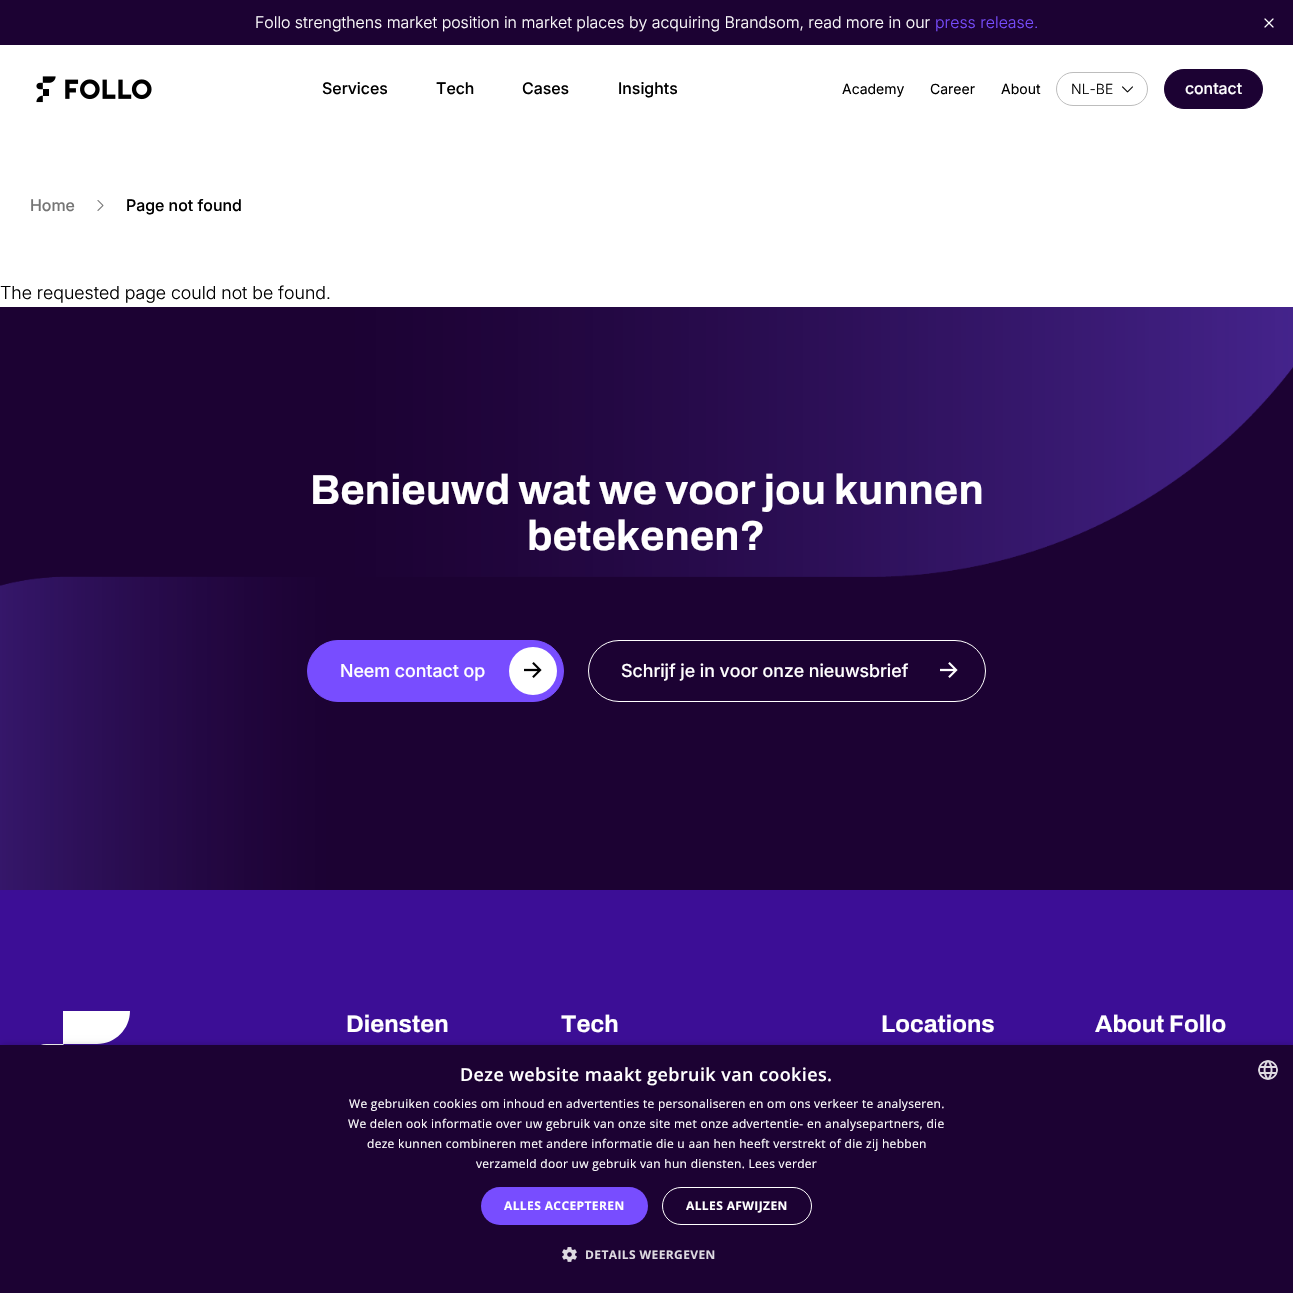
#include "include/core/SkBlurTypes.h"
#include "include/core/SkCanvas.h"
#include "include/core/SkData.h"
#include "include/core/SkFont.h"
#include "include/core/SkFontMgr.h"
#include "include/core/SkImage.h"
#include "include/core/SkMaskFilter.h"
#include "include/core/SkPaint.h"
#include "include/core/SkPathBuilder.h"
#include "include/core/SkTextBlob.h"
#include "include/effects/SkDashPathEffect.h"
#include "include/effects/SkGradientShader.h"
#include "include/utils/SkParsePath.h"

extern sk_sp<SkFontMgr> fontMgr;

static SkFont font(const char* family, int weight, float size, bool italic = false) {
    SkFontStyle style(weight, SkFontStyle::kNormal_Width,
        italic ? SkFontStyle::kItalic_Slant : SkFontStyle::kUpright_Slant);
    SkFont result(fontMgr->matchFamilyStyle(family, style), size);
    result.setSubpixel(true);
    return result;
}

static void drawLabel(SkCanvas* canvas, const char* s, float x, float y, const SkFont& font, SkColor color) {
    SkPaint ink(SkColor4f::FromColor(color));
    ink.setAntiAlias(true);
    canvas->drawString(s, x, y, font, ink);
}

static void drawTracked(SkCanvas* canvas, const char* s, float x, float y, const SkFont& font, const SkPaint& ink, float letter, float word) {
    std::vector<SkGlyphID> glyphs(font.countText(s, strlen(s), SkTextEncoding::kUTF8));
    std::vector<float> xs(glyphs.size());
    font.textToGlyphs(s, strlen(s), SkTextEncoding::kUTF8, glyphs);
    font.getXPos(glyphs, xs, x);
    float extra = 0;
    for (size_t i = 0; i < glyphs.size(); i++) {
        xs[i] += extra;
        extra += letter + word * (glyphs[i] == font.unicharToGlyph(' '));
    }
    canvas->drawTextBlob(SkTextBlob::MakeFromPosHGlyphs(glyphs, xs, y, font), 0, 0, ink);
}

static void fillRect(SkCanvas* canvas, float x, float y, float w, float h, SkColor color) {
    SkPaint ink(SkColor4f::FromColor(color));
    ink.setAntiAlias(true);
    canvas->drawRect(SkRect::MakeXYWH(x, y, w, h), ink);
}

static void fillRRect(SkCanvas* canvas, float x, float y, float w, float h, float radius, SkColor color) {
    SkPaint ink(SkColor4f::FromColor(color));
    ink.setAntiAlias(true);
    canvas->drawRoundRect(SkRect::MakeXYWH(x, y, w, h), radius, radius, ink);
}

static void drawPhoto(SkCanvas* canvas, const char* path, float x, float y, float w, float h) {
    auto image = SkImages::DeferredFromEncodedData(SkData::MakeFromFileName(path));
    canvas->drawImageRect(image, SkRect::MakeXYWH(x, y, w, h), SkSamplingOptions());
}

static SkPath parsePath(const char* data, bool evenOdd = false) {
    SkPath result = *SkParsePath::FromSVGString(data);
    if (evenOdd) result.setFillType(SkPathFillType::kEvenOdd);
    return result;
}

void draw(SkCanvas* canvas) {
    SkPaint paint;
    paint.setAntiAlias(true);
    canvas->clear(0xFFFFFFFF);
    fillRect(canvas, 0, 0, 1293, 45, 0xFF1C0233);
    SkFont font1 = font("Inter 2", 300, 16);
    drawLabel(canvas, "Follo strengthens market position in market places by acquiring Brandsom, read more in our", 255, 28, font1, 0xFFFFFFFF);
    drawLabel(canvas, "press release.", 935, 28, font1, 0xFF784DFF);
    drawPhoto(canvas, "assets/img1.png", 1264, 18, 10, 10);
    drawPhoto(canvas, "assets/img2.png", 36, 76, 116, 27);
    SkFont font2 = font("Inter 2", 500, 16);
    drawLabel(canvas, "Services", 322, 94, font2, 0xFF000000);
    drawLabel(canvas, "Tech", 436, 94, font2, 0xFF000000);
    drawLabel(canvas, "Cases", 522, 94, font2, 0xFF000000);
    drawLabel(canvas, "Insights", 618, 94, font2, 0xFF000000);
    SkFont font3 = font("Inter", 400, 14);
    drawLabel(canvas, "Academy", 842, 94, font3, 0xFF000000);
    drawLabel(canvas, "Career", 930, 94, font3, 0xFF000000);
    drawLabel(canvas, "About", 1001, 94, font3, 0xFF000000);
    paint.setStroke(true);
    paint.setStrokeWidth(1);
    paint.setColor(0xFFBDBDBD);
    canvas->drawRoundRect(SkRect::MakeXYWH(1056.5f, 72.5f, 91, 33), 16.5f, 16.5f, paint);
    SkFont font4 = font("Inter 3", 300, 14);
    drawLabel(canvas, "NL-BE", 1071, 94, font4, 0xFF000000);
    drawPhoto(canvas, "assets/img3.png", 1122, 86, 11, 7);
    paint.setStroke(false);
    paint.setColor(0xFF1C0233);
    canvas->drawRoundRect(SkRect::MakeXYWH(1164.5f, 69.5f, 98, 39), 19.5f, 19.5f, paint);
    paint.setStroke(true);
    canvas->drawRoundRect(SkRect::MakeXYWH(1164.5f, 69.5f, 98, 39), 19.5f, 19.5f, paint);
    SkFont font5 = font("Inter 3", 500, 16);
    drawLabel(canvas, "с", 1185, 94, font5, 0xFFFFFFFF);
    drawLabel(canvas, "ontact", 1194, 94, font2, 0xFFFFFFFF);
    drawLabel(canvas, "Home", 30, 211, font2, 0xFF757575);
    drawPhoto(canvas, "assets/img4.png", 97, 200, 7, 11);
    drawLabel(canvas, "Page not found", 126, 211, font2, 0xFF000000);
    SkFont font6 = font("Inter", 300, 18);
    drawLabel(canvas, "The requested page could not be found.", 0, 299, font6, 0xFF000000);
    fillRect(canvas, 0, 307, 1293, 583, 0xFF1C0233);
    drawPhoto(canvas, "assets/img5.png", 0, 307, 1293, 583);
    SkFont font7 = font("Archivo", 700, 42);
    drawLabel(canvas, "Benieuwd wat we voor jou kunnen", 310, 504, font7, 0xFFFFFFFF);
    drawLabel(canvas, "betekenen?", 527, 550, font7, 0xFFFFFFFF);
    paint.setStroke(false);
    paint.setColor(0xFF784DFF);
    canvas->drawRoundRect(SkRect::MakeXYWH(307.5f, 640.5f, 256, 61), 30.5f, 30.5f, paint);
    paint.setStroke(true);
    canvas->drawRoundRect(SkRect::MakeXYWH(307.5f, 640.5f, 256, 61), 30.5f, 30.5f, paint);
    SkFont font8 = font("Inter", 500, 18);
    drawLabel(canvas, "Neem contact op", 340, 677, font8, 0xFFFFFFFF);
    paint.setStroke(false);
    paint.setColor(0xFFFFFFFF);
    canvas->drawCircle(533, 671, 24, paint);
    drawPhoto(canvas, "assets/img6.png", 524, 662, 18, 16);
    paint.setStroke(true);
    canvas->drawRoundRect(SkRect::MakeXYWH(588.5f, 640.5f, 397, 61), 30.5f, 30.5f, paint);
    drawLabel(canvas, "Schrijf je in voor onze nieuwsbrief", 621, 677, font8, 0xFFFFFFFF);
    drawPhoto(canvas, "assets/img7.png", 940, 662, 18, 16);
    fillRect(canvas, 0, 890, 1293, 155, 0xFF3C0E96);
    paint.setStroke(false);
    canvas->drawPath(parsePath("M30 1061C30 1070 37.5 1077.5 46.5 1077.5H63.5V1044H46.5C37.5 1044 30 1051.5 30 1061Z"), paint);
    canvas->drawPath(parsePath("M63 1011V1044H97C115 1044 130 1029 130 1011Z"), paint);
    SkFont font9 = font("Archivo", 700, 24);
    drawLabel(canvas, "Diensten", 346, 1032, font9, 0xFFFFFFFF);
    drawLabel(canvas, "Tech", 561, 1032, font9, 0xFFFFFFFF);
    drawLabel(canvas, "Locations", 881, 1032, font9, 0xFFFFFFFF);
    drawLabel(canvas, "About Follo", 1095, 1032, font9, 0xFFFFFFFF);
    paint.setColor(0x59000000);
    paint.setMaskFilter(SkMaskFilter::MakeBlur(kNormal_SkBlurStyle, 4));
    canvas->drawRect(SkRect::MakeXYWH(1, 1047, 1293, 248), paint);
    paint.setMaskFilter(nullptr);
    fillRect(canvas, 0, 1045, 1293, 248, 0xFF1C0233);
    SkFont font10 = font("Open Sans", 600, 18);
    paint.setColor(0xFFFFFFFF);
    drawTracked(canvas, "Deze website maakt gebruik van cookies.", 460, 1081, font10, paint, 0.4f, 0);
    drawPhoto(canvas, "assets/img8.png", 1258, 1060, 20, 20);
    SkFont font11 = font("Open Sans", 400, 12);
    drawTracked(canvas, "We gebruiken cookies om inhoud en advertenties te personaliseren en om ons verkeer te analyseren.", 349, 1108, font11, paint, 0.3f, 0);
    drawTracked(canvas, "We delen ook informatie over uw gebruik van onze site met onze advertentie- en analysepartners, die", 348, 1128, font11, paint, 0.3f, 0);
    drawTracked(canvas, "deze kunnen combineren met andere informatie die u aan hen heeft verstrekt of die zij hebben", 367, 1148, font11, paint, 0.3f, 0);
    drawTracked(canvas, "verzameld door uw gebruik van hun diensten. Lees verder", 476, 1168, font11, paint, 0.3f, 0);
    fillRRect(canvas, 481, 1187, 167, 38, 19, 0xFF784DFF);
    SkFont font12 = font("Open Sans", 700, 12);
    drawTracked(canvas, "ALLES ACCEPTEREN", 504, 1210, font12, paint, 0.4f, 0);
    paint.setStroke(true);
    canvas->drawRoundRect(SkRect::MakeXYWH(662.5f, 1187.5f, 149, 37), 18.5f, 18.5f, paint);
    paint.setStroke(false);
    drawTracked(canvas, "ALLES AFWIJZEN", 686, 1210, font12, paint, 0.4f, 0);
    drawPhoto(canvas, "assets/img9.png", 562, 1247, 15, 15);
    paint.setColor(0xFFDDD9E0);
    drawTracked(canvas, "DETAILS WEERGEVEN", 585, 1259, font12, paint, 0.4f, 0);
}
